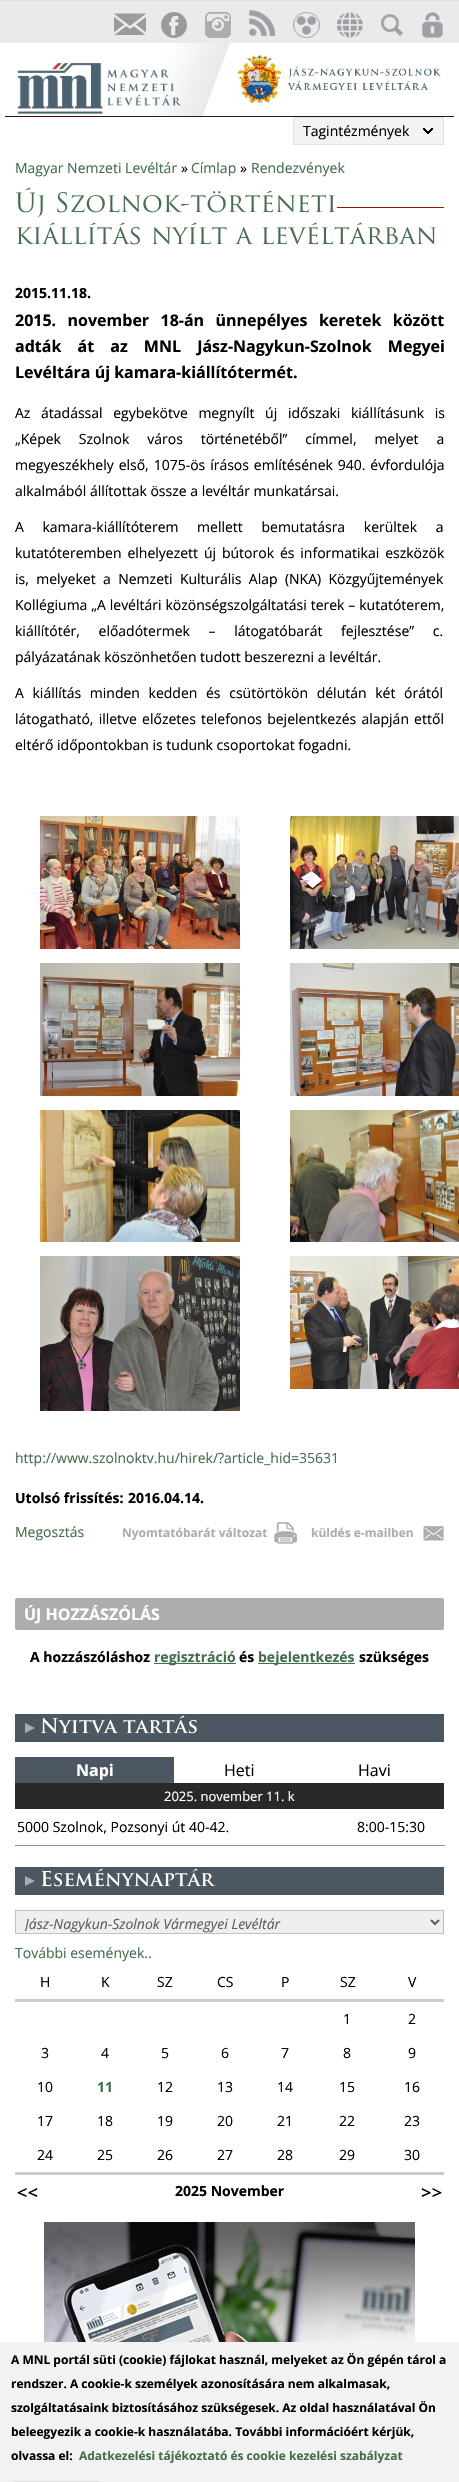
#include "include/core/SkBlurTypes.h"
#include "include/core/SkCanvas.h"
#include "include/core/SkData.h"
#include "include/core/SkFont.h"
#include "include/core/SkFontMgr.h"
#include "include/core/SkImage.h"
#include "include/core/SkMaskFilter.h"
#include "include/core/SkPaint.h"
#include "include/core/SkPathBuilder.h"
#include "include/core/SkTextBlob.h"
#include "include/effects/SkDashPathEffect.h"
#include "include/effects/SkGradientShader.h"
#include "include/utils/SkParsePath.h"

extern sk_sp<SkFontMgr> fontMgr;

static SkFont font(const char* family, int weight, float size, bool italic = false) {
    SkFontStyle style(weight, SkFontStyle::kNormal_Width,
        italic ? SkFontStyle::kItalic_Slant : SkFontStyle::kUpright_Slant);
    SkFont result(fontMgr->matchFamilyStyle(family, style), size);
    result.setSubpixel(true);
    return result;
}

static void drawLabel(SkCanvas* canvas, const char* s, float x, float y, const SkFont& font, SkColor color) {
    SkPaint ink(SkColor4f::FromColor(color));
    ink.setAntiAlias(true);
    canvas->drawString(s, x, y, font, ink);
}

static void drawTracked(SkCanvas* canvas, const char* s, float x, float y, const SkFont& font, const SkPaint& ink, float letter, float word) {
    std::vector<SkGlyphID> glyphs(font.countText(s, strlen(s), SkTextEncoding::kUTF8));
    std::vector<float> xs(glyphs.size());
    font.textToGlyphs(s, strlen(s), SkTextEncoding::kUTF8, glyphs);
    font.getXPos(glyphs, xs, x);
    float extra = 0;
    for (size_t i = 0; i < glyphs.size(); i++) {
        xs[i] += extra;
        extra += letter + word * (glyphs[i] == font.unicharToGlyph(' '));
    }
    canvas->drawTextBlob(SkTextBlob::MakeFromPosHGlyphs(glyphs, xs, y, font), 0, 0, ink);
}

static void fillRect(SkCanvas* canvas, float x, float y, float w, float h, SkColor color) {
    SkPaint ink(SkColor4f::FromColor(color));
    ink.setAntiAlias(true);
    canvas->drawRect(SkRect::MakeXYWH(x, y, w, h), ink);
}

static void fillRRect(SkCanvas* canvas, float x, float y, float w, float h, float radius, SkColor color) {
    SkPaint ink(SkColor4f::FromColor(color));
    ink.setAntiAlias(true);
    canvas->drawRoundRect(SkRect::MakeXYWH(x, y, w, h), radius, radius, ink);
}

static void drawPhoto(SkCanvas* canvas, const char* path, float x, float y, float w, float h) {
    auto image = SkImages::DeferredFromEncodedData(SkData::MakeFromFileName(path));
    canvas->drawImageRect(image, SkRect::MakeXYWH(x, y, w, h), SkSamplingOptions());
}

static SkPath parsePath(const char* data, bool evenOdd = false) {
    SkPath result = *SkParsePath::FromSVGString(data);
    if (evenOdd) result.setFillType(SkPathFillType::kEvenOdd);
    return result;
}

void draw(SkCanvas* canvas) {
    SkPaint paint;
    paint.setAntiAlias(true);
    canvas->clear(0xFFFFFFFF);
    fillRect(canvas, 0, 1, 459, 42, 0xFFEAEAEA);
    fillRect(canvas, 0, 0, 459, 1, 0xFFE1E1E1);
    drawPhoto(canvas, "assets/img1.png", 152, 43, 78, 73);
    fillRect(canvas, 5, 116, 449, 1, 0xFF36130F);
    drawPhoto(canvas, "assets/img2.png", 114, 13, 32, 22);
    drawPhoto(canvas, "assets/img3.png", 161, 12, 26, 26);
    drawPhoto(canvas, "assets/img4.png", 205, 12, 26, 26);
    drawPhoto(canvas, "assets/img5.png", 249, 10, 26, 26);
    drawPhoto(canvas, "assets/img6.png", 293, 12, 27, 26);
    drawPhoto(canvas, "assets/img7.png", 337, 12, 26, 26);
    drawPhoto(canvas, "assets/img8.png", 381, 14, 22, 22);
    drawPhoto(canvas, "assets/img9.png", 422, 12, 21, 26);
    drawPhoto(canvas, "assets/img10.png", 17, 63, 164, 51);
    drawPhoto(canvas, "assets/img11.png", 238, 55, 203, 48);
    fillRect(canvas, 294, 118, 149, 26, 0xFFF3F3F3);
    drawPhoto(canvas, "assets/img12.png", 423, 128, 10, 6);
    paint.setStroke(true);
    paint.setStrokeWidth(1);
    paint.setColor(0xFFE1E1E1);
    canvas->drawRect(SkRect::MakeXYWH(293.5f, 117.5f, 150, 27), paint);
    SkFont font1 = font("Open Sans", 400, 14);
    drawLabel(canvas, "Tagintézmények", 303, 136, font1, 0xFF000000);
    drawLabel(canvas, "Magyar Nemzeti Levéltár", 15, 173, font1, 0xFF436F4D);
    drawLabel(canvas, "»", 181, 173, font1, 0xFF000000);
    drawLabel(canvas, "Címlap", 191, 173, font1, 0xFF436F4D);
    drawLabel(canvas, "»", 240, 173, font1, 0xFF000000);
    drawLabel(canvas, "Rendezvények", 251, 173, font1, 0xFF436F4D);
    fillRect(canvas, 337, 207, 107, 1, 0xFF8A1D04);
    drawPhoto(canvas, "assets/img13.png", 15, 187, 320, 31);
    drawPhoto(canvas, "assets/img14.png", 17, 222, 419, 23);
    SkFont font2 = font("Open Sans", 700, 14);
    drawLabel(canvas, "2015.11.18.", 15, 298, font2, 0xFF000000);
    SkFont font3 = font("Open Sans", 700, 16);
    paint.setStroke(false);
    paint.setColor(0xFF000000);
    drawTracked(canvas, "2015. november 18-án ünnepélyes keretek között", 15, 326, font3, paint, 0, 7.25f);
    drawTracked(canvas, "adták át az MNL Jász-Nagykun-Szolnok Megyei", 15, 352, font3, paint, 0, 12);
    drawLabel(canvas, "Levéltára új kamara-kiállítótermét.", 15, 378, font3, 0xFF000000);
    drawTracked(canvas, "Az átadással egybekötve megnyílt új időszaki kiállításunk is", 15, 418, font1, paint, 0, 7);
    drawTracked(canvas, "„Képek Szolnok város történetéből” címmel, melyet a", 15, 444, font1, paint, 0, 14.25f);
    drawTracked(canvas, "megyeszékhely első, 1075-ös írásos említésének 940. évfordulója", 15, 470, font1, paint, 0, 1.25f);
    drawLabel(canvas, "alkalmából állítottak össze a levéltár munkatársai.", 15, 496, font1, 0xFF000000);
    drawTracked(canvas, "A kamara-kiállítóterem mellett bemutatásra kerültek a", 15, 532, font1, paint, 0, 15);
    drawTracked(canvas, "kutatóteremben elhelyezett új bútorok és informatikai eszközök", 15, 558, font1, paint, 0, 2.25f);
    drawTracked(canvas, "is, melyeket a Nemzeti Kulturális Alap (NKA) Közgyűjtemények", 15, 584, font1, paint, 0, 3.75f);
    drawTracked(canvas, "Kollégiuma „A levéltári közönségszolgáltatási terek – kutatóterem,", 15, 610, font1, paint, 0, 0.25f);
    drawTracked(canvas, "kiállítótér, előadótermek – látogatóbarát fejlesztése” c.", 15, 636, font1, paint, 0, 15);
    drawLabel(canvas, "pályázatának köszönhetően tudott beszerezni a levéltár.", 15, 662, font1, 0xFF000000);
    drawTracked(canvas, "A kiállítás minden kedden és csütörtökön délután két órától", 15, 698, font1, paint, 0, 5);
    drawTracked(canvas, "látogatható, illetve előzetes telefonos bejelentkezés alapján ettől", 15, 724, font1, paint, 0, 1.5f);
    drawLabel(canvas, "eltérő időpontokban is tudunk csoportokat fogadni.", 15, 750, font1, 0xFF000000);
    drawPhoto(canvas, "assets/img15.png", 40, 816, 200, 133);
    drawPhoto(canvas, "assets/img16.png", 290, 816, 169, 133);
    drawPhoto(canvas, "assets/img17.png", 40, 963, 200, 133);
    drawPhoto(canvas, "assets/img18.png", 290, 963, 169, 133);
    drawPhoto(canvas, "assets/img19.png", 40, 1110, 200, 132);
    drawPhoto(canvas, "assets/img20.png", 290, 1110, 169, 132);
    drawPhoto(canvas, "assets/img21.png", 40, 1256, 200, 155);
    drawPhoto(canvas, "assets/img22.png", 290, 1256, 169, 133);
    drawLabel(canvas, "http://www.szolnoktv.hu/hirek/?article_hid=35631", 15, 1463, font1, 0xFF436F4D);
    drawLabel(canvas, "Utolsó frissítés:", 15, 1503, font2, 0xFF000000);
    drawLabel(canvas, "2016.04.14.", 128, 1503, font2, 0xFF000000);
    drawLabel(canvas, "Megosztás", 15, 1537, font1, 0xFF436F4D);
    drawPhoto(canvas, "assets/img23.png", 274, 1522, 23, 22);
    SkFont font4 = font("Open Sans", 700, 12);
    drawLabel(canvas, "Nyomtatóbarát változat", 122, 1537, font4, 0xFFADADAD);
    drawPhoto(canvas, "assets/img24.png", 423, 1526, 21, 15);
    drawLabel(canvas, "küldés e-mailben", 311, 1537, font4, 0xFFADADAD);
    fillRRect(canvas, 15, 1598, 429, 32, 2, 0xFFADADAD);
    drawLabel(canvas, "ÚJ HOZZÁSZÓLÁS", 24, 1620, font3, 0xFFFFFFFF);
    drawLabel(canvas, "A hozzászóláshoz", 30, 1662, font2, 0xFF000000);
    fillRect(canvas, 154, 1663, 82, 1, 0xFF436F4D);
    drawLabel(canvas, "regisztráció", 154, 1662, font2, 0xFF436F4D);
    drawLabel(canvas, "és", 239, 1662, font2, 0xFF000000);
    fillRect(canvas, 258, 1663, 97, 1, 0xFF436F4D);
    drawLabel(canvas, "bejelentkezés", 258, 1662, font2, 0xFF436F4D);
    drawLabel(canvas, "szükséges", 359, 1662, font2, 0xFF000000);
    fillRect(canvas, 15, 1714, 429, 28, 0xFF4D5762);
    drawPhoto(canvas, "assets/img25.png", 25, 1723, 10, 10);
    drawPhoto(canvas, "assets/img26.png", 41, 1715, 156, 19);
    fillRect(canvas, 15, 1757, 159, 26, 0xFF4D5762);
    drawLabel(canvas, "Napi", 76, 1776, font3, 0xFFFFFFFF);
    SkFont font5 = font("Open Sans", 400, 16);
    drawLabel(canvas, "Heti", 224, 1776, font5, 0xFF000000);
    drawLabel(canvas, "Havi", 358, 1776, font5, 0xFF000000);
    fillRect(canvas, 15, 1783, 429, 26, 0xFF292929);
    SkFont font6 = font("Open Sans", 400, 13);
    drawLabel(canvas, "2025. november 11. k", 164, 1801, font6, 0xFFFFFFFF);
    fillRect(canvas, 15, 1845, 430, 1, 0xFF949494);
    drawLabel(canvas, "5000 Szolnok, Pozsonyi út 40-42.", 17, 1832, font1, 0xFF000000);
    drawLabel(canvas, "8:00-15:30", 357, 1832, font1, 0xFF000000);
    fillRect(canvas, 15, 1867, 429, 28, 0xFF4D5762);
    drawPhoto(canvas, "assets/img25.png", 25, 1876, 10, 10);
    drawPhoto(canvas, "assets/img27.png", 41, 1868, 175, 19);
    paint.setColor(0xFFEFEFEF);
    canvas->drawRect(SkRect::MakeXYWH(15.5f, 1910.5f, 428, 23), paint);
    paint.setStroke(true);
    paint.setColor(0xFFC1C1C1);
    canvas->drawRect(SkRect::MakeXYWH(15.5f, 1910.5f, 428, 23), paint);
    paint.setStrokeWidth(2);
    paint.setColor(0xFF5C5C5C);
    canvas->drawPath(parsePath("M431 1920L435 1924L439 1920"), paint);
    canvas->save();
    canvas->clipRect(SkRect::MakeXYWH(25, 1913, 397, 21));
    SkFont font7 = font("Open Sans", 400, 14, true);
    drawLabel(canvas, "Jász-Nagykun-Szolnok Vármegyei Levéltár", 25, 1929, font7, 0xFF5C5C5C);
    canvas->restore();
    drawLabel(canvas, "További események..", 15, 1958, font1, 0xFF436F4D);
    fillRect(canvas, 15, 1999, 429, 3, 0xFFCCCCCC);
    drawLabel(canvas, "H", 40, 1987, font1, 0xFF000000);
    drawLabel(canvas, "K", 101, 1987, font1, 0xFF000000);
    drawLabel(canvas, "SZ", 157, 1987, font1, 0xFF000000);
    drawLabel(canvas, "CS", 217, 1987, font1, 0xFF000000);
    drawLabel(canvas, "P", 281, 1987, font1, 0xFF000000);
    drawLabel(canvas, "SZ", 340, 1987, font1, 0xFF000000);
    drawLabel(canvas, "V", 408, 1987, font1, 0xFF000000);
    drawLabel(canvas, "1", 343, 2024, font1, 0xFF000000);
    drawLabel(canvas, "2", 408, 2024, font1, 0xFF000000);
    drawLabel(canvas, "3", 41, 2058, font1, 0xFF000000);
    drawLabel(canvas, "4", 101, 2058, font1, 0xFF000000);
    drawLabel(canvas, "5", 161, 2058, font1, 0xFF000000);
    drawLabel(canvas, "6", 221, 2058, font1, 0xFF000000);
    drawLabel(canvas, "7", 281, 2058, font1, 0xFF000000);
    drawLabel(canvas, "8", 343, 2058, font1, 0xFF000000);
    drawLabel(canvas, "9", 408, 2058, font1, 0xFF000000);
    drawLabel(canvas, "10", 37, 2092, font1, 0xFF000000);
    drawLabel(canvas, "11", 97, 2092, font2, 0xFF436F4D);
    drawLabel(canvas, "12", 157, 2092, font1, 0xFF000000);
    drawLabel(canvas, "13", 217, 2092, font1, 0xFF000000);
    drawLabel(canvas, "14", 277, 2092, font1, 0xFF000000);
    drawLabel(canvas, "15", 339, 2092, font1, 0xFF000000);
    drawLabel(canvas, "16", 404, 2092, font1, 0xFF000000);
    drawLabel(canvas, "17", 37, 2126, font1, 0xFF000000);
    drawLabel(canvas, "18", 97, 2126, font1, 0xFF000000);
    drawLabel(canvas, "19", 157, 2126, font1, 0xFF000000);
    drawLabel(canvas, "20", 217, 2126, font1, 0xFF000000);
    drawLabel(canvas, "21", 277, 2126, font1, 0xFF000000);
    drawLabel(canvas, "22", 339, 2126, font1, 0xFF000000);
    drawLabel(canvas, "23", 404, 2126, font1, 0xFF000000);
    drawLabel(canvas, "24", 37, 2160, font1, 0xFF000000);
    drawLabel(canvas, "25", 97, 2160, font1, 0xFF000000);
    drawLabel(canvas, "26", 157, 2160, font1, 0xFF000000);
    drawLabel(canvas, "27", 217, 2160, font1, 0xFF000000);
    drawLabel(canvas, "28", 277, 2160, font1, 0xFF000000);
    drawLabel(canvas, "29", 339, 2160, font1, 0xFF000000);
    drawLabel(canvas, "30", 404, 2160, font1, 0xFF000000);
    fillRect(canvas, 15, 2172, 429, 3, 0xFFCCCCCC);
    drawPhoto(canvas, "assets/img28.png", 17, 2188, 21, 9);
    drawLabel(canvas, "2025 November", 175, 2196, font2, 0xFF000000);
    drawPhoto(canvas, "assets/img29.png", 421, 2188, 21, 9);
    drawPhoto(canvas, "assets/img30.png", 44, 2222, 371, 120);
    fillRect(canvas, 0, 2342, 459, 140, 0xFFF2F2F2);
    drawLabel(canvas, "A MNL portál süti (cookie) fájlokat használ, melyeket az Ön gépén tárol a", 11, 2364, font4, 0xFF000000);
    drawLabel(canvas, "rendszer. A cookie-k személyek azonosítására nem alkalmasak,", 11, 2388, font4, 0xFF000000);
    drawLabel(canvas, "szolgáltatásaink biztosításához szükségesek. Az oldal használatával Ön", 11, 2412, font4, 0xFF000000);
    drawLabel(canvas, "beleegyezik a cookie-k használatába. További információért kérjük,", 11, 2436, font4, 0xFF000000);
    drawLabel(canvas, "olvassa el:", 11, 2460, font4, 0xFF000000);
    drawLabel(canvas, "Adatkezelési tájékoztató és cookie kezelési szabályzat", 79, 2460, font4, 0xFF436F4D);
    paint.setStrokeWidth(1);
    paint.setColor(0xFFDCDCDC);
    canvas->drawRoundRect(SkRect::MakeXYWH(11.5f, 2481.5f, 90, 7), 5.5f, 5.5f, paint);
}
